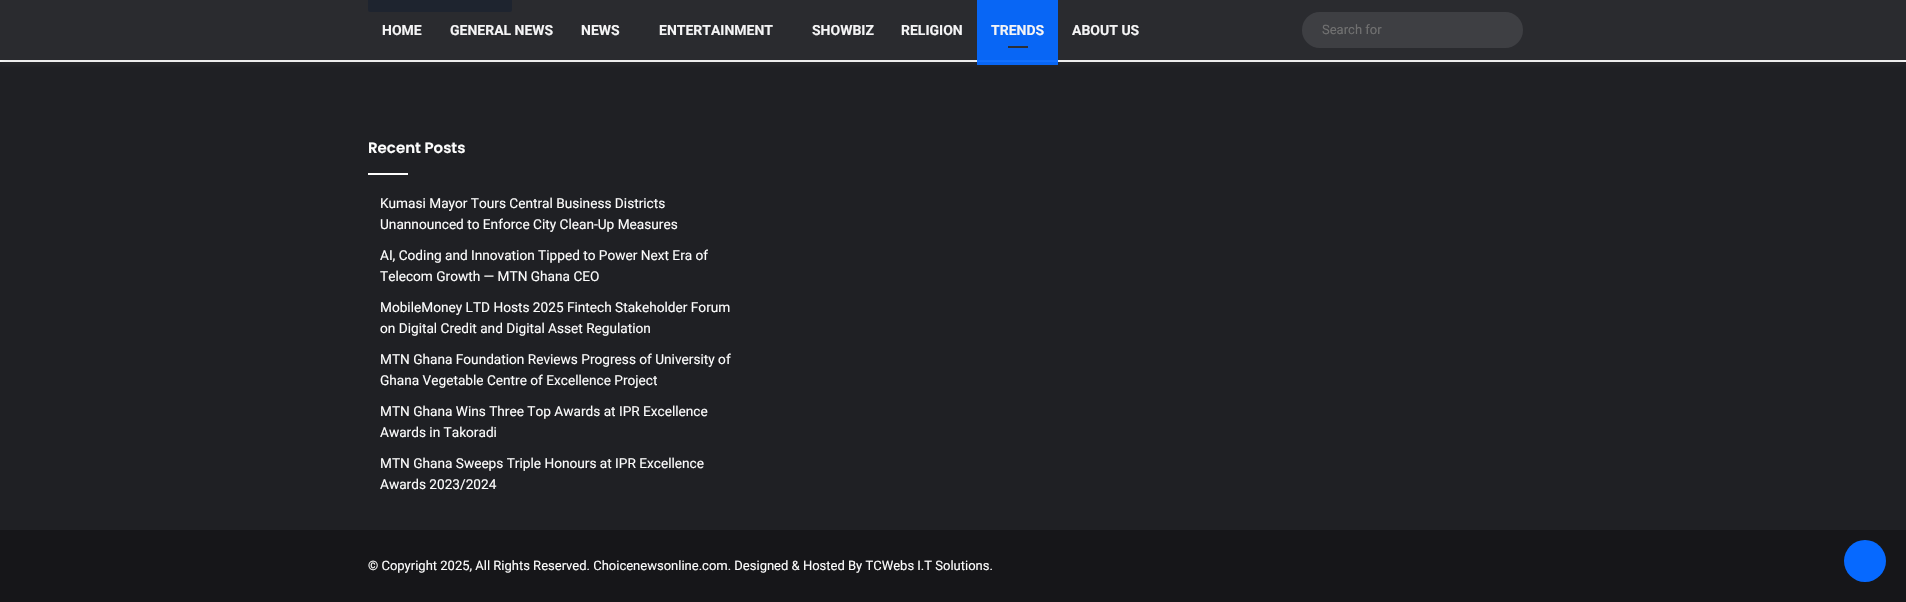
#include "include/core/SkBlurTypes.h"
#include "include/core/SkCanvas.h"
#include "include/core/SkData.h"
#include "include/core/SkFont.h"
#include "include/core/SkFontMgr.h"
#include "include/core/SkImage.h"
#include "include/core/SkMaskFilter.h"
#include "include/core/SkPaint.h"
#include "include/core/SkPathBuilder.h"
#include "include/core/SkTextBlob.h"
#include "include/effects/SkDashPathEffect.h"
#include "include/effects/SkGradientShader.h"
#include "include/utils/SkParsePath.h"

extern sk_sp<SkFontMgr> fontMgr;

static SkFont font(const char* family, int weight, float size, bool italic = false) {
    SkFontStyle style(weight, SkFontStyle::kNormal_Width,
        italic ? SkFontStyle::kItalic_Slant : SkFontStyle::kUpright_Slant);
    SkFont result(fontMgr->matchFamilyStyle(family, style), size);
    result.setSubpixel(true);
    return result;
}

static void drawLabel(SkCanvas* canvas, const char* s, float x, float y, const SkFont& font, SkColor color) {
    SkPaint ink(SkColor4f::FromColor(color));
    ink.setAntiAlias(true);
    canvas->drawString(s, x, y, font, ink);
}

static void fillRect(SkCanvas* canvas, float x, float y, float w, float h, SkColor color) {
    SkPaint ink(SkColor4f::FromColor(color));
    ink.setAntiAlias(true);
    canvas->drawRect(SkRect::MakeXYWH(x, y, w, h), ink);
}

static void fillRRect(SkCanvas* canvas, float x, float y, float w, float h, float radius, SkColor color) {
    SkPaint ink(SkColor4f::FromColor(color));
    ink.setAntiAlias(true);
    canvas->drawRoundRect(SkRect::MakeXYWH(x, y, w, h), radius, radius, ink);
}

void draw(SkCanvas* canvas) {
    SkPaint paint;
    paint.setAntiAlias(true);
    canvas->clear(0xFFFFFFFF);
    fillRect(canvas, 0, 0, 1906, 60, 0xFF2A2B2F);
    fillRRect(canvas, 368, -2, 144, 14, 2, 0xFF1E242F);
    fillRect(canvas, 0, 62, 1906, 468, 0xFF1F2024);
    canvas->save();
    canvas->clipRect(SkRect::MakeXYWH(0, 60, 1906, 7));
    paint.setColor(0x33636363);
    paint.setMaskFilter(SkMaskFilter::MakeBlur(kNormal_SkBlurStyle, 4));
    canvas->drawRect(SkRect::MakeXYWH(0, 2, 1906, 60), paint);
    paint.setMaskFilter(nullptr);
    canvas->restore();
    SkFont font1 = font("Roboto", 700, 14);
    drawLabel(canvas, "HOME", 382, 35, font1, 0xFFF4F4F5);
    drawLabel(canvas, "GENERAL NEWS", 450, 35, font1, 0xFFF4F4F5);
    drawLabel(canvas, "NEWS", 581, 35, font1, 0xFFF4F4F5);
    drawLabel(canvas, "ENTERTAINMENT", 659, 35, font1, 0xFFF4F4F5);
    drawLabel(canvas, "SHOWBIZ", 812, 35, font1, 0xFFF4F4F5);
    drawLabel(canvas, "RELIGION", 901, 35, font1, 0xFFF4F4F5);
    fillRect(canvas, 977, 60, 81, 5, 0xF20669FF);
    fillRect(canvas, 977, 0, 81, 60, 0xFF0866F5);
    drawLabel(canvas, "TRENDS", 991, 35, font1, 0xFFF4F4F5);
    fillRect(canvas, 1008, 46, 20, 2, 0xFF2C2F34);
    drawLabel(canvas, "ABOUT US", 1072, 35, font1, 0xFFF4F4F5);
    fillRRect(canvas, 1302, 12, 221, 36, 18, 0xFF3E3F43);
    SkFont font2 = font("Roboto", 400, 13);
    drawLabel(canvas, "Search for", 1322, 34, font2, 0xFF717171);
    SkFont font3 = font("Poppins", 600, 15);
    drawLabel(canvas, "Recent Posts", 368, 153, font3, 0xFFFDFDFD);
    fillRect(canvas, 368, 173, 40, 2, 0xFFFDFDFD);
    SkFont font4 = font("Roboto", 400, 13.65f);
    drawLabel(canvas, "Kumasi Mayor Tours Central Business Districts", 380, 208, font4, 0xFFFDFDFD);
    drawLabel(canvas, "Unannounced to Enforce City Clean-Up Measures", 380, 229, font4, 0xFFFDFDFD);
    drawLabel(canvas, "AI, Coding and Innovation Tipped to Power Next Era of", 380, 260, font4, 0xFFFDFDFD);
    drawLabel(canvas, "Telecom Growth — MTN Ghana CEO", 380, 281, font4, 0xFFFDFDFD);
    drawLabel(canvas, "MobileMoney LTD Hosts 2025 Fintech Stakeholder Forum", 380, 312, font4, 0xFFFDFDFD);
    drawLabel(canvas, "on Digital Credit and Digital Asset Regulation", 380, 333, font4, 0xFFFDFDFD);
    drawLabel(canvas, "MTN Ghana Foundation Reviews Progress of University of", 380, 364, font4, 0xFFFDFDFD);
    drawLabel(canvas, "Ghana Vegetable Centre of Excellence Project", 380, 385, font4, 0xFFFDFDFD);
    drawLabel(canvas, "MTN Ghana Wins Three Top Awards at IPR Excellence", 380, 416, font4, 0xFFFDFDFD);
    drawLabel(canvas, "Awards in Takoradi", 380, 437, font4, 0xFFFDFDFD);
    drawLabel(canvas, "MTN Ghana Sweeps Triple Honours at IPR Excellence", 380, 468, font4, 0xFFFDFDFD);
    drawLabel(canvas, "Awards 2023/2024", 380, 489, font4, 0xFFFDFDFD);
    fillRect(canvas, 0, 530, 1906, 72, 0xFF161619);
    drawLabel(canvas, "© Copyright 2025, All Rights Reserved. Choicenewsonline.com. Designed & Hosted By TCWebs I.T Solutions.", 368, 570, font2, 0xFFFDFDFD);
    paint.setColor(0xFF0669FF);
    canvas->drawCircle(1865, 561, 21, paint);
}
